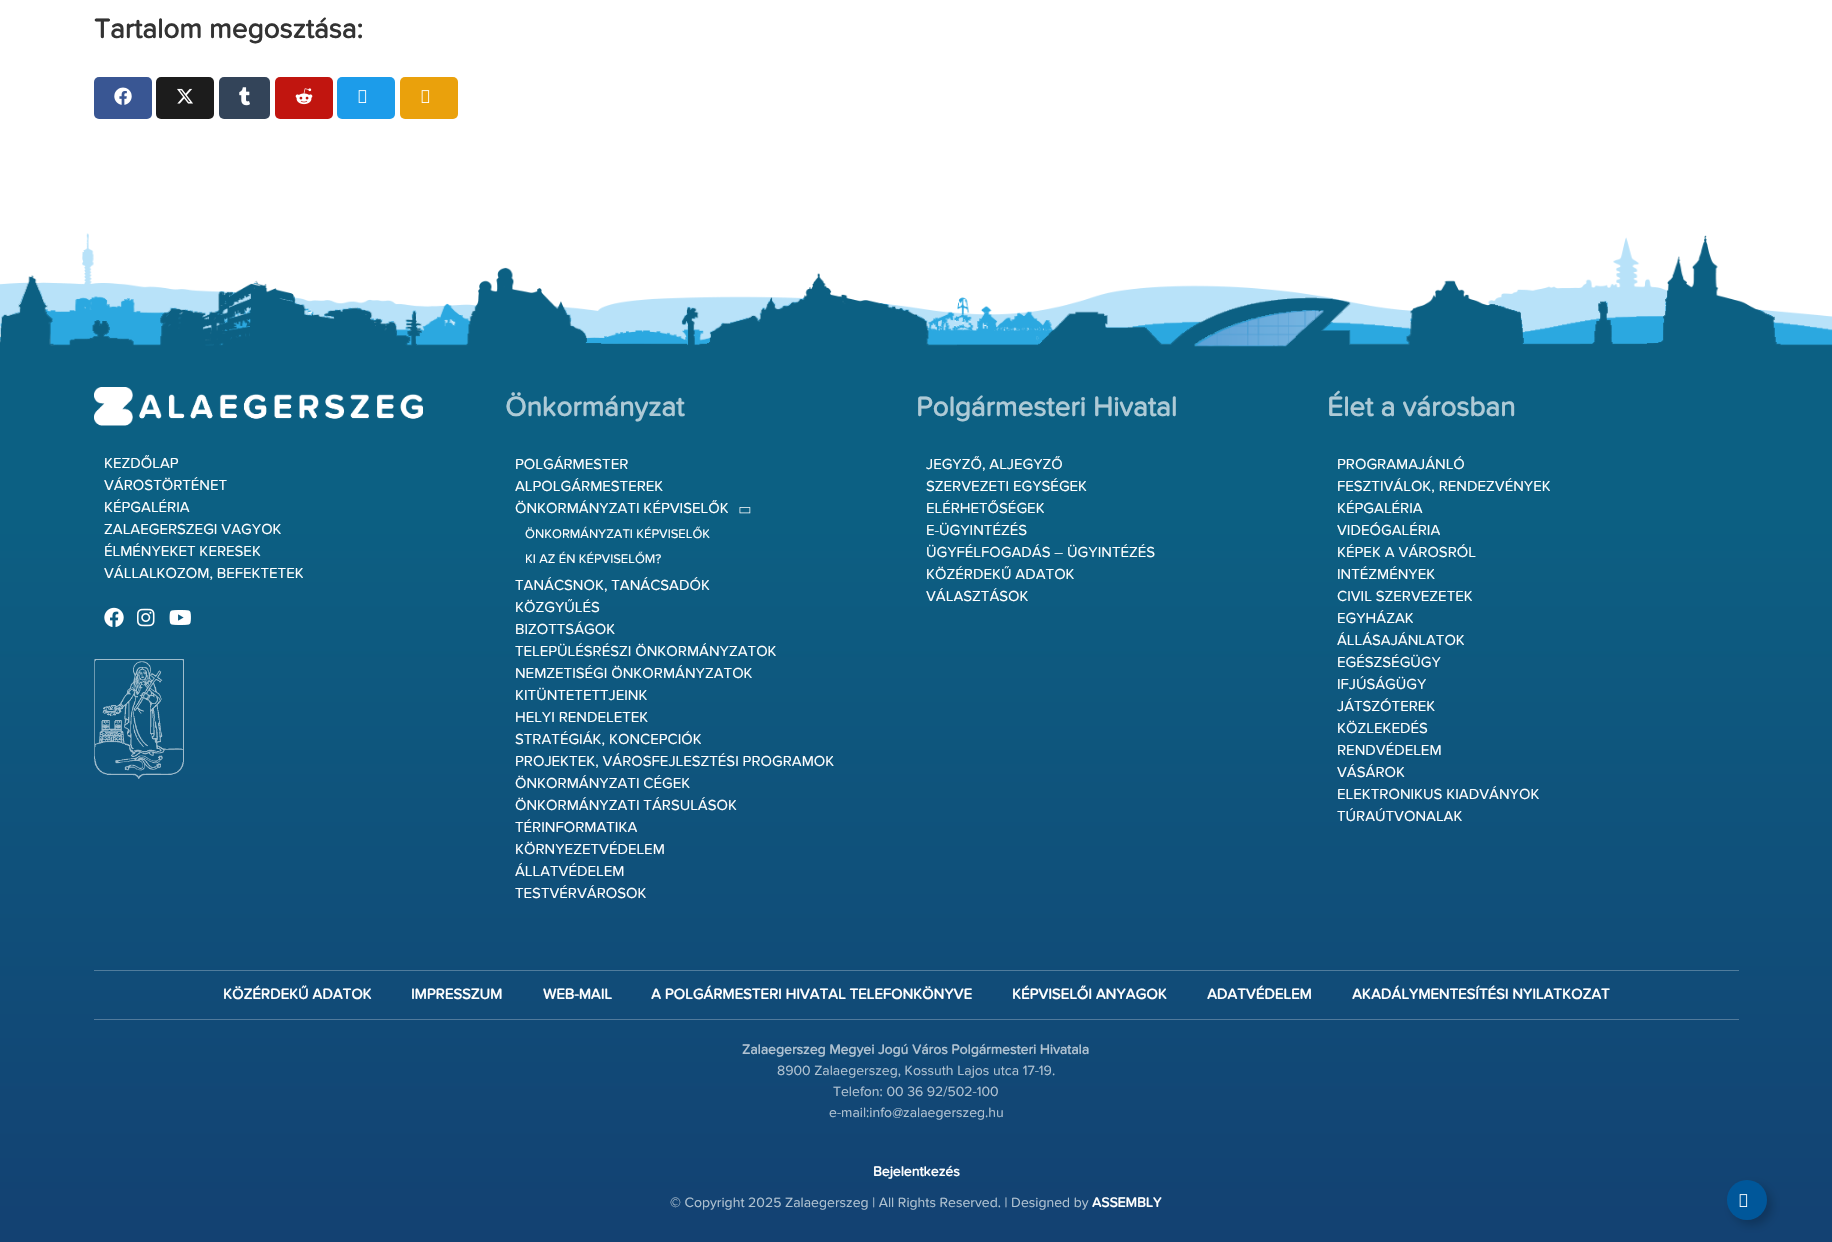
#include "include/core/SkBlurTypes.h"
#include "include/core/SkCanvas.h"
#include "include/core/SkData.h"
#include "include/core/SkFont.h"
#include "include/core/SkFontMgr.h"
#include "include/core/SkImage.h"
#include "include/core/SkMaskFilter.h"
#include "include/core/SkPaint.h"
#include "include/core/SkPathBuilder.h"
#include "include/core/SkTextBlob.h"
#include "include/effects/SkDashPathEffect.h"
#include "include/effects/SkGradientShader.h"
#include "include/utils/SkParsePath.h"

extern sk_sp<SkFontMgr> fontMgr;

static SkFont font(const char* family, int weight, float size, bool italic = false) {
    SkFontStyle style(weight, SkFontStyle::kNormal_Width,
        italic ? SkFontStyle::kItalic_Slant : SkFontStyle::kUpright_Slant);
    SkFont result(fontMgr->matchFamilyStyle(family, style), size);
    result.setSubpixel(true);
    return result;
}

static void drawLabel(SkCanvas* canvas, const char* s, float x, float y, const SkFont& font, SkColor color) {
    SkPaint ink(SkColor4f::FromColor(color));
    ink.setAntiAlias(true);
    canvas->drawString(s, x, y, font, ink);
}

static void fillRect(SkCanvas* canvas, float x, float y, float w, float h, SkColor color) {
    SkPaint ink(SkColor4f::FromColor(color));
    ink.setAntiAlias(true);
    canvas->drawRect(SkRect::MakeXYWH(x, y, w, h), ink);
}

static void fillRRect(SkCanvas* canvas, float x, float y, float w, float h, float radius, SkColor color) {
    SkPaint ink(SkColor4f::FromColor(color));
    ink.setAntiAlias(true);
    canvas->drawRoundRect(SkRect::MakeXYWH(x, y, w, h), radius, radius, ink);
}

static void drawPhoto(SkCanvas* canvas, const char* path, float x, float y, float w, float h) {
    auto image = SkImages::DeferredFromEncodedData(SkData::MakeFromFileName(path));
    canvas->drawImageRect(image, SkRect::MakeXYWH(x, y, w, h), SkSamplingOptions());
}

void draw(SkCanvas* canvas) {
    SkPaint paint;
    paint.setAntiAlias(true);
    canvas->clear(0xFFFFFFFF);
    SkFont font1 = font("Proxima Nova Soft", 700, 28);
    drawLabel(canvas, "Tartalom megosztása:", 94, 38, font1, 0xFF333333);
    fillRRect(canvas, 94, 77, 58, 42, 5, 0xFF395693);
    drawPhoto(canvas, "assets/img1.png", 114, 87, 18, 18);
    fillRRect(canvas, 156, 77, 58, 42, 5, 0xFF1C1C1C);
    drawPhoto(canvas, "assets/img2.png", 177, 88, 16, 16);
    fillRRect(canvas, 219, 77, 51, 42, 5, 0xFF334459);
    drawPhoto(canvas, "assets/img3.png", 239, 87, 11, 19);
    fillRRect(canvas, 275, 77, 58, 42, 5, 0xFFC1150F);
    drawPhoto(canvas, "assets/img4.png", 295, 88, 18, 17);
    fillRRect(canvas, 337, 77, 58, 42, 5, 0xFF1C9CEA);
    drawPhoto(canvas, "assets/img5.png", 358, 90, 9, 13);
    fillRRect(canvas, 400, 77, 58, 42, 5, 0xFFEAA10C);
    drawPhoto(canvas, "assets/img6.png", 421, 90, 9, 13);
    {
        const SkColor colors[] = {0xFF0C6083, 0xFF134172};
        const float stops[] = {0.3f, 1};
        const SkPoint ends[] = {{916, 179}, {916, 1242}};
        paint.setShader(SkGradientShader::MakeLinear(ends, colors, stops, 2, SkTileMode::kClamp));
        paint.setAlpha(255);
    }
    canvas->drawRect(SkRect::MakeXYWH(0, 360, 1832, 882), paint);
    drawPhoto(canvas, "assets/img7.png", 0, 233, 1832, 108);
    drawPhoto(canvas, "assets/img9.png", 0, 282, 1832, 65);
    drawPhoto(canvas, "assets/img8.png", 0, 235, 1832, 125);
    drawPhoto(canvas, "assets/img10.png", 94, 387, 329, 39);
    SkFont font2 = font("Proxima Nova Soft", 400, 15);
    drawLabel(canvas, "KEZDŐLAP", 104, 468, font2, 0xFFFFFFFF);
    drawLabel(canvas, "VÁROSTÖRTÉNET", 104, 490, font2, 0xFFFFFFFF);
    drawLabel(canvas, "KÉPGALÉRIA", 104, 512, font2, 0xFFFFFFFF);
    drawLabel(canvas, "ZALAEGERSZEGI VAGYOK", 104, 534, font2, 0xFFFFFFFF);
    drawLabel(canvas, "ÉLMÉNYEKET KERESEK", 104, 556, font2, 0xFFFFFFFF);
    drawLabel(canvas, "VÁLLALKOZOM, BEFEKTETEK", 104, 578, font2, 0xFFFFFFFF);
    drawPhoto(canvas, "assets/img11.png", 104, 607, 20, 20);
    drawPhoto(canvas, "assets/img12.png", 137, 608, 18, 19);
    drawPhoto(canvas, "assets/img13.png", 169, 610, 22, 15);
    drawPhoto(canvas, "assets/img14.png", 94, 659, 90, 120);
    drawLabel(canvas, "Önkormányzat", 505, 416, font1, 0xFFAECAD6);
    drawLabel(canvas, "POLGÁRMESTER", 515, 469, font2, 0xFFFFFFFF);
    drawLabel(canvas, "ALPOLGÁRMESTEREK", 515, 491, font2, 0xFFFFFFFF);
    drawLabel(canvas, "ÖNKORMÁNYZATI KÉPVISELŐK", 515, 513, font2, 0xFFFFFFFF);
    drawPhoto(canvas, "assets/img15.png", 739, 507, 12, 7);
    SkFont font3 = font("Proxima Nova Soft", 400, 13);
    drawLabel(canvas, "ÖNKORMÁNYZATI KÉPVISELŐK", 525, 538, font3, 0xFFFFFFFF);
    drawLabel(canvas, "KI AZ ÉN KÉPVISELŐM?", 525, 563, font3, 0xFFFFFFFF);
    drawLabel(canvas, "TANÁCSNOK, TANÁCSADÓK", 515, 590, font2, 0xFFFFFFFF);
    drawLabel(canvas, "KÖZGYŰLÉS", 515, 612, font2, 0xFFFFFFFF);
    drawLabel(canvas, "BIZOTTSÁGOK", 515, 634, font2, 0xFFFFFFFF);
    drawLabel(canvas, "TELEPÜLÉSRÉSZI ÖNKORMÁNYZATOK", 515, 656, font2, 0xFFFFFFFF);
    drawLabel(canvas, "NEMZETISÉGI ÖNKORMÁNYZATOK", 515, 678, font2, 0xFFFFFFFF);
    drawLabel(canvas, "KITÜNTETETTJEINK", 515, 700, font2, 0xFFFFFFFF);
    drawLabel(canvas, "HELYI RENDELETEK", 515, 722, font2, 0xFFFFFFFF);
    drawLabel(canvas, "STRATÉGIÁK, KONCEPCIÓK", 515, 744, font2, 0xFFFFFFFF);
    drawLabel(canvas, "PROJEKTEK, VÁROSFEJLESZTÉSI PROGRAMOK", 515, 766, font2, 0xFFFFFFFF);
    drawLabel(canvas, "ÖNKORMÁNYZATI CÉGEK", 515, 788, font2, 0xFFFFFFFF);
    drawLabel(canvas, "ÖNKORMÁNYZATI TÁRSULÁSOK", 515, 810, font2, 0xFFFFFFFF);
    drawLabel(canvas, "TÉRINFORMATIKA", 515, 832, font2, 0xFFFFFFFF);
    drawLabel(canvas, "KÖRNYEZETVÉDELEM", 515, 854, font2, 0xFFFFFFFF);
    drawLabel(canvas, "ÁLLATVÉDELEM", 515, 876, font2, 0xFFFFFFFF);
    drawLabel(canvas, "TESTVÉRVÁROSOK", 515, 898, font2, 0xFFFFFFFF);
    drawLabel(canvas, "Polgármesteri Hivatal", 916, 416, font1, 0xFFAECAD6);
    drawLabel(canvas, "JEGYZŐ, ALJEGYZŐ", 926, 469, font2, 0xFFFFFFFF);
    drawLabel(canvas, "SZERVEZETI EGYSÉGEK", 926, 491, font2, 0xFFFFFFFF);
    drawLabel(canvas, "ELÉRHETŐSÉGEK", 926, 513, font2, 0xFFFFFFFF);
    drawLabel(canvas, "E-ÜGYINTÉZÉS", 926, 535, font2, 0xFFFFFFFF);
    drawLabel(canvas, "ÜGYFÉLFOGADÁS – ÜGYINTÉZÉS", 926, 557, font2, 0xFFFFFFFF);
    drawLabel(canvas, "KÖZÉRDEKŰ ADATOK", 926, 579, font2, 0xFFFFFFFF);
    drawLabel(canvas, "VÁLASZTÁSOK", 926, 601, font2, 0xFFFFFFFF);
    drawLabel(canvas, "Élet a városban", 1327, 416, font1, 0xFFAECAD6);
    drawLabel(canvas, "PROGRAMAJÁNLÓ", 1337, 469, font2, 0xFFFFFFFF);
    drawLabel(canvas, "FESZTIVÁLOK, RENDEZVÉNYEK", 1337, 491, font2, 0xFFFFFFFF);
    drawLabel(canvas, "KÉPGALÉRIA", 1337, 513, font2, 0xFFFFFFFF);
    drawLabel(canvas, "VIDEÓGALÉRIA", 1337, 535, font2, 0xFFFFFFFF);
    drawLabel(canvas, "KÉPEK A VÁROSRÓL", 1337, 557, font2, 0xFFFFFFFF);
    drawLabel(canvas, "INTÉZMÉNYEK", 1337, 579, font2, 0xFFFFFFFF);
    drawLabel(canvas, "CIVIL SZERVEZETEK", 1337, 601, font2, 0xFFFFFFFF);
    drawLabel(canvas, "EGYHÁZAK", 1337, 623, font2, 0xFFFFFFFF);
    drawLabel(canvas, "ÁLLÁSAJÁNLATOK", 1337, 645, font2, 0xFFFFFFFF);
    drawLabel(canvas, "EGÉSZSÉGÜGY", 1337, 667, font2, 0xFFFFFFFF);
    drawLabel(canvas, "IFJÚSÁGÜGY", 1337, 689, font2, 0xFFFFFFFF);
    drawLabel(canvas, "JÁTSZÓTEREK", 1337, 711, font2, 0xFFFFFFFF);
    drawLabel(canvas, "KÖZLEKEDÉS", 1337, 733, font2, 0xFFFFFFFF);
    drawLabel(canvas, "RENDVÉDELEM", 1337, 755, font2, 0xFFFFFFFF);
    drawLabel(canvas, "VÁSÁROK", 1337, 777, font2, 0xFFFFFFFF);
    drawLabel(canvas, "ELEKTRONIKUS KIADVÁNYOK", 1337, 799, font2, 0xFFFFFFFF);
    drawLabel(canvas, "TÚRAÚTVONALAK", 1337, 821, font2, 0xFFFFFFFF);
    fillRect(canvas, 94, 970, 1645, 1, 0xFF507C9C);
    fillRect(canvas, 94, 1019, 1645, 1, 0xFF517A9B);
    SkFont font4 = font("Proxima Nova Soft", 700, 15);
    drawLabel(canvas, "KÖZÉRDEKŰ ADATOK", 223, 999, font4, 0xFFFFFFFF);
    drawLabel(canvas, "IMPRESSZUM", 411, 999, font4, 0xFFFFFFFF);
    drawLabel(canvas, "WEB-MAIL", 543, 999, font4, 0xFFFFFFFF);
    drawLabel(canvas, "A POLGÁRMESTERI HIVATAL TELEFONKÖNYVE", 651, 999, font4, 0xFFFFFFFF);
    drawLabel(canvas, "KÉPVISELŐI ANYAGOK", 1012, 999, font4, 0xFFFFFFFF);
    drawLabel(canvas, "ADATVÉDELEM", 1207, 999, font4, 0xFFFFFFFF);
    drawLabel(canvas, "AKADÁLYMENTESÍTÉSI NYILATKOZAT", 1352, 999, font4, 0xFFFFFFFF);
    SkFont font5 = font("Proxima Nova Soft", 700, 14);
    drawLabel(canvas, "Zalaegerszeg Megyei Jogú Város Polgármesteri Hivatala", 742, 1054, font5, 0xFFB0C2D1);
    SkFont font6 = font("Proxima Nova Soft", 400, 14);
    drawLabel(canvas, "8900 Zalaegerszeg, Kossuth Lajos utca 17-19.", 777, 1075, font6, 0xFFB0C2D1);
    drawLabel(canvas, "Telefon: 00 36 92/502-100", 833, 1096, font6, 0xFFB0C2D1);
    drawLabel(canvas, "e-mail:info@zalaegerszeg.hu", 829, 1117, font6, 0xFFB0C2D1);
    drawLabel(canvas, "Bejelentkezés", 873, 1176, font5, 0xFFFFFFFF);
    drawLabel(canvas, "© Copyright 2025 Zalaegerszeg | All Rights Reserved. | Designed by", 670, 1207, font6, 0xFFB0C2D1);
    drawLabel(canvas, "ASSEMBLY", 1092, 1207, font5, 0xFFFFFFFF);
    paint.setShader(nullptr);
    paint.setColor(0x33000000);
    paint.setMaskFilter(SkMaskFilter::MakeBlur(kNormal_SkBlurStyle, 5));
    canvas->drawRoundRect(SkRect::MakeXYWH(1732, 1185, 40, 40), 20, 20, paint);
    paint.setMaskFilter(nullptr);
    paint.setColor(0xFF00579A);
    canvas->drawCircle(1747, 1200, 20, paint);
    drawPhoto(canvas, "assets/img16.png", 1739, 1194, 9, 13);
}
